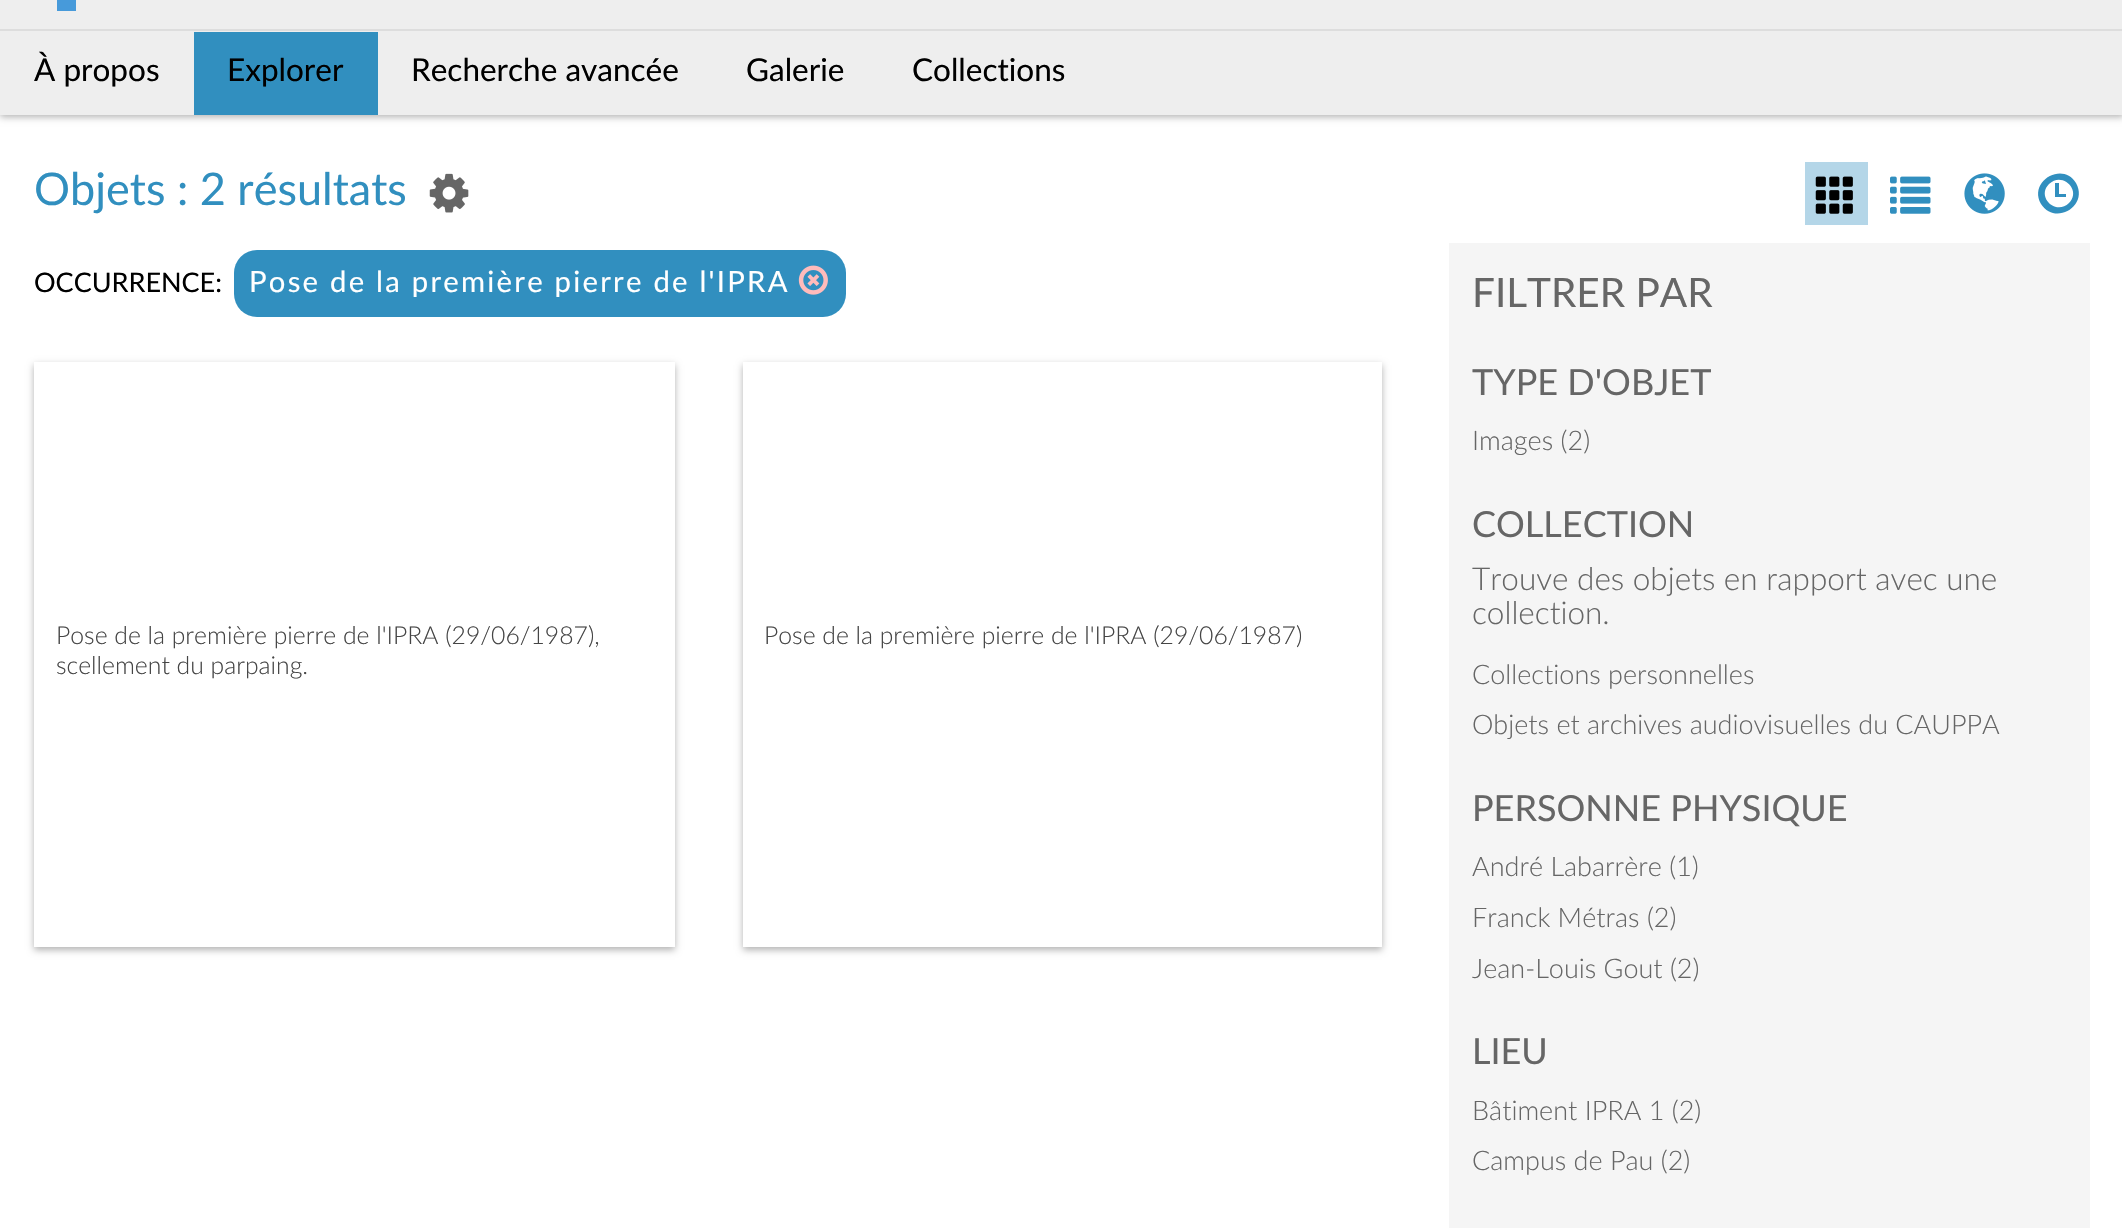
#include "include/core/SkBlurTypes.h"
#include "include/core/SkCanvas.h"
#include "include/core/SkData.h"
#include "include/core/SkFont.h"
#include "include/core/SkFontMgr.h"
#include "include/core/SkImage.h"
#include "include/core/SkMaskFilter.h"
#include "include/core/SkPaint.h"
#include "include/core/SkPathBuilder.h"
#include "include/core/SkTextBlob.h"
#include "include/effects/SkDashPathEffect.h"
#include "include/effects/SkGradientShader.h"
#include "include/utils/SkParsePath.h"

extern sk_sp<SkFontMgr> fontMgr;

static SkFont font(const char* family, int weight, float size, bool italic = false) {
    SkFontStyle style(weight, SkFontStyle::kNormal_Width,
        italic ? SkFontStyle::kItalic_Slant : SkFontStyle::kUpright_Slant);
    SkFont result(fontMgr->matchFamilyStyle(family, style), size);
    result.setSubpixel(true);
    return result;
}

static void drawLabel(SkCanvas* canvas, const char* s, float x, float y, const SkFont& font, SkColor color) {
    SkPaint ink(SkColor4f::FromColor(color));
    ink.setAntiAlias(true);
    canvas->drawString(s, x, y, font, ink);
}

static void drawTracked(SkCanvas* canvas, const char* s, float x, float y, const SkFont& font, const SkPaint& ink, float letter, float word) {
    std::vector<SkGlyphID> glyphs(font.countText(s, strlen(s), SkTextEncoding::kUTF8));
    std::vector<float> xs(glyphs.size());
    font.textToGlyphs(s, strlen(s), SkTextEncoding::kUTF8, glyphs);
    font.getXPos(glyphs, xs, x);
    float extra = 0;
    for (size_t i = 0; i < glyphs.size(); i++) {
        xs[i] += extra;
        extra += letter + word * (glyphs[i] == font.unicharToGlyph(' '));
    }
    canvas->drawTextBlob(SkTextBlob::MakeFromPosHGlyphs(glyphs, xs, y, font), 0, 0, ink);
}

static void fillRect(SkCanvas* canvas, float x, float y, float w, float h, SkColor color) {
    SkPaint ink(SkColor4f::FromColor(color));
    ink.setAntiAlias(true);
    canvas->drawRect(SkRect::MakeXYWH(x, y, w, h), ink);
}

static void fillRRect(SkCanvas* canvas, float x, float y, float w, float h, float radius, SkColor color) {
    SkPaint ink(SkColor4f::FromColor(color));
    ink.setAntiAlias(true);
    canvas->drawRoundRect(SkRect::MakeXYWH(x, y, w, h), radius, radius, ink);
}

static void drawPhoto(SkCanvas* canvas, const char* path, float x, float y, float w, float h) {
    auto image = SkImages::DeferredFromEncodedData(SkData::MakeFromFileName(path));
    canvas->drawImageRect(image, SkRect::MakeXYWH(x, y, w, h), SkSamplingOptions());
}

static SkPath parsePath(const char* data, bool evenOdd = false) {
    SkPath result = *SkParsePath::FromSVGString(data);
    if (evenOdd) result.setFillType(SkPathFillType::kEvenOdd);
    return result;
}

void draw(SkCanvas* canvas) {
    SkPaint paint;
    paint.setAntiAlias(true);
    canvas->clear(0xFFFFFFFF);
    paint.setColor(0x4D000000);
    paint.setMaskFilter(SkMaskFilter::MakeBlur(kNormal_SkBlurStyle, 3.5f));
    canvas->drawRect(SkRect::MakeXYWH(0, -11, 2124, 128), paint);
    paint.setMaskFilter(nullptr);
    fillRect(canvas, 0, 0, 2122, 115, 0xFFEEEEEE);
    fillRect(canvas, 57, 0, 19, 11, 0xFF479ADA);
    fillRect(canvas, 0, 29, 2122, 2, 0xFFDDDDDD);
    SkFont font1 = font("Lato", 400, 31.5f);
    drawLabel(canvas, "À propos", 34, 81, font1, 0xFF000000);
    fillRect(canvas, 194, 32, 184, 83, 0xFF318FBF);
    drawLabel(canvas, "Explorer", 227, 81, font1, 0xFF000000);
    drawLabel(canvas, "Recherche avancée", 411, 81, font1, 0xFF000000);
    drawLabel(canvas, "Galerie", 746, 81, font1, 0xFF000000);
    drawLabel(canvas, "Collections", 912, 81, font1, 0xFF000000);
    SkFont font2 = font("Lato", 400, 45);
    drawLabel(canvas, "Objets : 2 résultats", 34, 205, font2, 0xFF318FBF);
    drawPhoto(canvas, "assets/img1.png", 429, 173, 40, 40);
    SkFont font3 = font("Lato", 400, 27);
    drawLabel(canvas, "OCCURRENCE:", 34, 292, font3, 0xFF000000);
    fillRRect(canvas, 234, 250, 612, 67, 23, 0xFF318FBF);
    SkFont font4 = font("Lato", 400, 29.25f);
    paint.setColor(0xFFFFFFFF);
    drawTracked(canvas, "Pose de la première pierre de l'IPRA", 249, 292, font4, paint, 2.25f, 0);
    drawPhoto(canvas, "assets/img2.png", 798, 265, 30, 30);
    paint.setColor(0x4D000000);
    paint.setMaskFilter(SkMaskFilter::MakeBlur(kNormal_SkBlurStyle, 3.5f));
    canvas->drawRect(SkRect::MakeXYWH(34, 365, 641, 585), paint);
    paint.setMaskFilter(nullptr);
    fillRect(canvas, 34, 362, 641, 585, 0xFFFFFFFF);
    SkFont font5 = font("Lato", 300, 24.75f);
    drawLabel(canvas, "Pose de la première pierre de l'IPRA (29/06/1987),", 56, 644, font5, 0xFF454545);
    drawLabel(canvas, "scellement du parpaing.", 56, 674, font5, 0xFF454545);
    paint.setMaskFilter(SkMaskFilter::MakeBlur(kNormal_SkBlurStyle, 3.5f));
    canvas->drawRect(SkRect::MakeXYWH(743, 365, 639, 585), paint);
    paint.setMaskFilter(nullptr);
    fillRect(canvas, 743, 362, 639, 585, 0xFFFFFFFF);
    drawLabel(canvas, "Pose de la première pierre de l'IPRA (29/06/1987)", 764, 644, font5, 0xFF454545);
    fillRect(canvas, 1805, 162, 63, 63, 0xFFB4D6E8);
    drawPhoto(canvas, "assets/img3.png", 1815, 176, 38, 38);
    drawPhoto(canvas, "assets/img4.png", 1890, 176, 41, 38);
    drawPhoto(canvas, "assets/img5.png", 1964, 173, 41, 41);
    paint.setColor(0xFF318FBF);
    canvas->drawPath(parsePath("M2041 204C2028 181 2063 161 2076 183C2089 206 2055 226 2041 204ZM2049 184C2036 197 2056 216 2069 203C2082 190 2062 171 2049 184ZM2055 197V183H2059V194H2066V197Z"), paint);
    fillRect(canvas, 1449, 243, 641, 985, 0xFFF5F5F5);
    SkFont font6 = font("Lato", 400, 40.5f);
    drawLabel(canvas, "FILTRER PAR", 1472, 307, font6, 0xFF666666);
    SkFont font7 = font("Lato", 400, 36);
    drawLabel(canvas, "TYPE D'OBJET", 1472, 395, font7, 0xFF666666);
    SkFont font8 = font("Lato", 300, 27);
    drawLabel(canvas, "Images (2)", 1472, 450, font8, 0xFF666666);
    drawLabel(canvas, "COLLECTION", 1472, 537, font7, 0xFF666666);
    SkFont font9 = font("Lato", 300, 31.5f);
    drawLabel(canvas, "Trouve des objets en rapport avec une", 1472, 590, font9, 0xFF666666);
    drawLabel(canvas, "collection.", 1472, 624, font9, 0xFF666666);
    drawLabel(canvas, "Collections personnelles", 1472, 684, font8, 0xFF666666);
    drawLabel(canvas, "Objets et archives audiovisuelles du CAUPPA", 1472, 734, font8, 0xFF666666);
    drawLabel(canvas, "PERSONNE PHYSIQUE", 1472, 821, font7, 0xFF666666);
    drawLabel(canvas, "André Labarrère (1)", 1472, 876, font8, 0xFF666666);
    drawLabel(canvas, "Franck Métras (2)", 1472, 927, font8, 0xFF666666);
    drawLabel(canvas, "Jean-Louis Gout (2)", 1472, 978, font8, 0xFF666666);
    drawLabel(canvas, "LIEU", 1472, 1064, font7, 0xFF666666);
    drawLabel(canvas, "Bâtiment IPRA 1 (2)", 1472, 1120, font8, 0xFF666666);
    drawLabel(canvas, "Campus de Pau (2)", 1472, 1170, font8, 0xFF666666);
}
